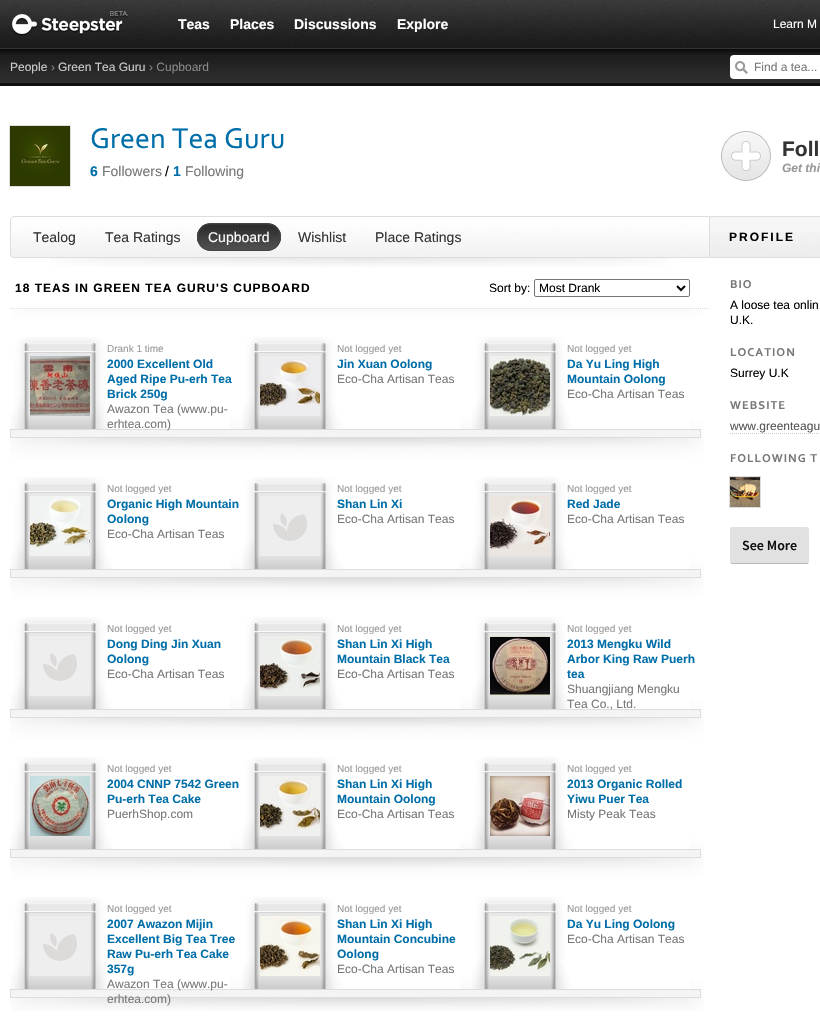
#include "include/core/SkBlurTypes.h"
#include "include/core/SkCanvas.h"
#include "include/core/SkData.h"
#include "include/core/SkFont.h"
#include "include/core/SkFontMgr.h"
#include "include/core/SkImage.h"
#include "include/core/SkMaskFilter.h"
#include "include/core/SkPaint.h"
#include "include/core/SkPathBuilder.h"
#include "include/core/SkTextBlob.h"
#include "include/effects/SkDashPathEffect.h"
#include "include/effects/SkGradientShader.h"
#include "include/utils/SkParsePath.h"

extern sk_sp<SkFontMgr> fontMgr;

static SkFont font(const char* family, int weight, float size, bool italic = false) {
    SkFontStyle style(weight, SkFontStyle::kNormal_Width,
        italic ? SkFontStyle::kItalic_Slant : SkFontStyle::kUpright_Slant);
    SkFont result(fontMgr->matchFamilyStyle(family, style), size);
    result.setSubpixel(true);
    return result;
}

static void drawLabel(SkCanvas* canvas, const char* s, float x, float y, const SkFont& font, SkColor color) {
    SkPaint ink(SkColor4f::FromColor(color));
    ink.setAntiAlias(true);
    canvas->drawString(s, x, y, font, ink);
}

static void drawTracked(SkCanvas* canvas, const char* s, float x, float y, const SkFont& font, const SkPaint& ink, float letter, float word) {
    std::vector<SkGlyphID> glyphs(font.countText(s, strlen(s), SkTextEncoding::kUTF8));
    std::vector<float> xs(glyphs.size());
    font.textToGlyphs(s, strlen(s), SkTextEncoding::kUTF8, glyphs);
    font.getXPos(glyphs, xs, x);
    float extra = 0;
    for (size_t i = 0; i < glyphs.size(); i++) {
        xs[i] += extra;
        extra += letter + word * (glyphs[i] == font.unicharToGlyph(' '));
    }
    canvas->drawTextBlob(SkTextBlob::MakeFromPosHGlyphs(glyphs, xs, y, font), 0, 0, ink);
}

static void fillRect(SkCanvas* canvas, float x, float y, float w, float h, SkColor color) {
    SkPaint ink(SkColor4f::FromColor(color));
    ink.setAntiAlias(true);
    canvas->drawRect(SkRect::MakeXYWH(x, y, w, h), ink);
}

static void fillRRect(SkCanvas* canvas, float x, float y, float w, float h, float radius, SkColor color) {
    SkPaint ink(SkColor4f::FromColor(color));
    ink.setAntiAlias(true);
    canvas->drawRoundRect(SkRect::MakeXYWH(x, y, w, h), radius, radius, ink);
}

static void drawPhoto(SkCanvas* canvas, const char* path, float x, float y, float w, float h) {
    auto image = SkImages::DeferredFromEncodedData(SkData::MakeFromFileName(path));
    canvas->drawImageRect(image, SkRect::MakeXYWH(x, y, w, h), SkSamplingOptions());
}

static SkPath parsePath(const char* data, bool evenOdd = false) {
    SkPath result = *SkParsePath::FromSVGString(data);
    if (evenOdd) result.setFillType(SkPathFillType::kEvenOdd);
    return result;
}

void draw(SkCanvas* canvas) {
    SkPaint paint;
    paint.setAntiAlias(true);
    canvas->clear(0xFFFFFFFF);
    drawPhoto(canvas, "assets/img1.png", 0, 0, 820, 48);
    drawPhoto(canvas, "assets/img2.png", 11, 11, 117, 25);
    SkFont font1 = font("Liberation Sans", 700, 14);
    drawLabel(canvas, "Teas", 178, 29, font1, 0xFFFFFFFF);
    drawLabel(canvas, "Places", 230, 29, font1, 0xFFFFFFFF);
    drawLabel(canvas, "Discussions", 294, 29, font1, 0xFFFFFFFF);
    drawLabel(canvas, "Explore", 397, 29, font1, 0xFFFFFFFF);
    SkFont font2 = font("Liberation Sans", 400, 12);
    drawLabel(canvas, "Learn M", 773, 28, font2, 0xFFFFFFFF);
    fillRect(canvas, 0, 83, 820, 3, 0xFF111111);
    drawPhoto(canvas, "assets/img3.png", 0, 49, 820, 34);
    fillRect(canvas, 0, 48, 820, 1, 0xFF333333);
    drawLabel(canvas, "People", 10, 71, font2, 0xFFCCCCCC);
    drawLabel(canvas, "›", 51, 71, font2, 0xFF888888);
    drawLabel(canvas, "Green Tea Guru", 58, 71, font2, 0xFFCCCCCC);
    drawLabel(canvas, "› Cupboard", 149, 71, font2, 0xFF888888);
    fillRRect(canvas, 730, 55, 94, 24, 4, 0xFFFFFFFF);
    drawPhoto(canvas, "assets/img4.png", 735, 61, 13, 13);
    drawLabel(canvas, "Find a tea...", 754, 71, font2, 0xFF777777);
    drawPhoto(canvas, "assets/img5.png", 10, 126, 60, 60);
    paint.setStroke(true);
    paint.setStrokeWidth(1);
    paint.setColor(0xFFDDDDDD);
    canvas->drawRect(SkRect::MakeXYWH(9.5f, 125.5f, 61, 61), paint);
    SkFont font3 = font("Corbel", 400, 30);
    drawLabel(canvas, "Green Tea Guru", 90, 148, font3, 0xFF006EA8);
    drawLabel(canvas, "6", 90, 176, font1, 0xFF006EA8);
    SkFont font4 = font("Liberation Sans", 400, 14);
    drawLabel(canvas, "Followers", 102, 176, font4, 0xFF777777);
    drawLabel(canvas, "/", 165, 176, font4, 0xFF000000);
    drawLabel(canvas, "1", 173, 176, font1, 0xFF006EA8);
    drawLabel(canvas, "Following", 185, 176, font4, 0xFF777777);
    drawPhoto(canvas, "assets/img6.png", 10, 224, 699, 33);
    canvas->drawPath(parsePath("M14 216.5H709.5V257.5H14C12 257.5 10.5 256 10.5 254V220C10.5 218 12 216.5 14 216.5Z"), paint);
    drawLabel(canvas, "Tealog", 33, 242, font4, 0xFF333333);
    drawLabel(canvas, "Tea Ratings", 105, 242, font4, 0xFF333333);
    fillRRect(canvas, 197, 223, 84, 28, 14, 0xFF4E4E4E);
    drawPhoto(canvas, "assets/img7.png", 197, 224, 84, 25);
    paint.setColor(0xFF444444);
    canvas->drawRoundRect(SkRect::MakeXYWH(197.5f, 223.5f, 83, 27), 13.5f, 13.5f, paint);
    drawLabel(canvas, "Cupboard", 208, 242, font4, 0xFFFFFFFF);
    drawLabel(canvas, "Wishlist", 298, 242, font4, 0xFF333333);
    drawLabel(canvas, "Place Ratings", 375, 242, font4, 0xFF333333);
    drawPhoto(canvas, "assets/img8.png", 51, 258, 618, 9);
    SkFont font5 = font("Liberation Sans", 700, 12);
    paint.setStroke(false);
    paint.setColor(0xFF000000);
    drawTracked(canvas, "18 TEAS IN GREEN TEA GURU'S CUPBOARD", 15, 292, font5, paint, 1, 0);
    drawLabel(canvas, "Sort by:", 489, 292, font2, 0xFF000000);
    paint.setStroke(true);
    paint.setColor(0xFF767676);
    canvas->drawRoundRect(SkRect::MakeXYWH(534.5f, 279.5f, 155, 17), 1.5f, 1.5f, paint);
    paint.setStrokeWidth(2);
    paint.setColor(0xFF000000);
    canvas->drawPath(parsePath("M677 286L681 290L685 286"), paint);
    drawLabel(canvas, "Most Drank", 539, 292, font2, 0xFF000000);
    drawPhoto(canvas, "assets/img9.png", 10, 308, 694, 703);
    paint.setStrokeWidth(1);
    paint.setColor(0xFFDDDDDD);
    paint.setPathEffect(SkDashPathEffect::Make({{1, 1}}, 0));
    canvas->drawPath(parsePath("M10 308.5H710"), paint);
    paint.setPathEffect(nullptr);
    drawPhoto(canvas, "assets/img10.png", 11, 337, 219, 92);
    SkFont font6 = font("Liberation Sans", 400, 10);
    drawLabel(canvas, "Drank 1 time", 107, 352, font6, 0xFF999999);
    drawPhoto(canvas, "assets/img11.png", 30, 356, 60, 60);
    drawLabel(canvas, "2000 Excellent Old", 107, 368, font5, 0xFF006EA8);
    drawLabel(canvas, "Aged Ripe Pu-erh Tea", 107, 383, font5, 0xFF006EA8);
    drawLabel(canvas, "Brick 250g", 107, 398, font5, 0xFF006EA8);
    drawLabel(canvas, "Awazon Tea (www.pu-", 107, 413, font2, 0xFF777777);
    drawLabel(canvas, "erhtea.com)", 107, 428, font2, 0xFF777777);
    drawPhoto(canvas, "assets/img12.png", 242, 337, 218, 92);
    drawLabel(canvas, "Not logged yet", 337, 352, font6, 0xFF999999);
    drawPhoto(canvas, "assets/img13.png", 260, 356, 60, 60);
    drawLabel(canvas, "Jin Xuan Oolong", 337, 368, font5, 0xFF006EA8);
    drawLabel(canvas, "Eco-Cha Artisan Teas", 337, 383, font2, 0xFF777777);
    drawPhoto(canvas, "assets/img12.png", 472, 337, 218, 92);
    drawLabel(canvas, "Not logged yet", 567, 352, font6, 0xFF999999);
    drawPhoto(canvas, "assets/img14.png", 490, 356, 60, 60);
    drawLabel(canvas, "Da Yu Ling High", 567, 368, font5, 0xFF006EA8);
    drawLabel(canvas, "Mountain Oolong", 567, 383, font5, 0xFF006EA8);
    drawLabel(canvas, "Eco-Cha Artisan Teas", 567, 398, font2, 0xFF777777);
    drawPhoto(canvas, "assets/img10.png", 11, 477, 219, 92);
    drawLabel(canvas, "Not logged yet", 107, 492, font6, 0xFF999999);
    drawPhoto(canvas, "assets/img15.png", 30, 496, 60, 60);
    drawLabel(canvas, "Organic High Mountain", 107, 508, font5, 0xFF006EA8);
    drawLabel(canvas, "Oolong", 107, 523, font5, 0xFF006EA8);
    drawLabel(canvas, "Eco-Cha Artisan Teas", 107, 538, font2, 0xFF777777);
    drawPhoto(canvas, "assets/img12.png", 242, 477, 218, 92);
    drawLabel(canvas, "Not logged yet", 337, 492, font6, 0xFF999999);
    drawPhoto(canvas, "assets/img16.png", 260, 496, 60, 60);
    drawLabel(canvas, "Shan Lin Xi", 337, 508, font5, 0xFF006EA8);
    drawLabel(canvas, "Eco-Cha Artisan Teas", 337, 523, font2, 0xFF777777);
    drawPhoto(canvas, "assets/img12.png", 472, 477, 218, 92);
    drawLabel(canvas, "Not logged yet", 567, 492, font6, 0xFF999999);
    drawPhoto(canvas, "assets/img17.png", 490, 496, 60, 60);
    drawLabel(canvas, "Red Jade", 567, 508, font5, 0xFF006EA8);
    drawLabel(canvas, "Eco-Cha Artisan Teas", 567, 523, font2, 0xFF777777);
    drawPhoto(canvas, "assets/img10.png", 11, 617, 219, 92);
    drawLabel(canvas, "Not logged yet", 107, 632, font6, 0xFF999999);
    drawPhoto(canvas, "assets/img16.png", 30, 636, 60, 60);
    drawLabel(canvas, "Dong Ding Jin Xuan", 107, 648, font5, 0xFF006EA8);
    drawLabel(canvas, "Oolong", 107, 663, font5, 0xFF006EA8);
    drawLabel(canvas, "Eco-Cha Artisan Teas", 107, 678, font2, 0xFF777777);
    drawPhoto(canvas, "assets/img12.png", 242, 617, 218, 92);
    drawLabel(canvas, "Not logged yet", 337, 632, font6, 0xFF999999);
    drawPhoto(canvas, "assets/img18.png", 260, 636, 60, 60);
    drawLabel(canvas, "Shan Lin Xi High", 337, 648, font5, 0xFF006EA8);
    drawLabel(canvas, "Mountain Black Tea", 337, 663, font5, 0xFF006EA8);
    drawLabel(canvas, "Eco-Cha Artisan Teas", 337, 678, font2, 0xFF777777);
    drawPhoto(canvas, "assets/img12.png", 472, 617, 218, 92);
    drawLabel(canvas, "Not logged yet", 567, 632, font6, 0xFF999999);
    drawPhoto(canvas, "assets/img19.png", 490, 636, 60, 60);
    drawLabel(canvas, "2013 Mengku Wild", 567, 648, font5, 0xFF006EA8);
    drawLabel(canvas, "Arbor King Raw Puerh", 567, 663, font5, 0xFF006EA8);
    drawLabel(canvas, "tea", 567, 678, font5, 0xFF006EA8);
    drawLabel(canvas, "Shuangjiang Mengku", 567, 693, font2, 0xFF777777);
    drawLabel(canvas, "Tea Co., Ltd.", 567, 708, font2, 0xFF777777);
    drawPhoto(canvas, "assets/img10.png", 11, 757, 219, 92);
    drawLabel(canvas, "Not logged yet", 107, 772, font6, 0xFF999999);
    drawPhoto(canvas, "assets/img20.png", 30, 776, 60, 60);
    drawLabel(canvas, "2004 CNNP 7542 Green", 107, 788, font5, 0xFF006EA8);
    drawLabel(canvas, "Pu-erh Tea Cake", 107, 803, font5, 0xFF006EA8);
    drawLabel(canvas, "PuerhShop.com", 107, 818, font2, 0xFF777777);
    drawPhoto(canvas, "assets/img12.png", 242, 757, 218, 92);
    drawLabel(canvas, "Not logged yet", 337, 772, font6, 0xFF999999);
    drawPhoto(canvas, "assets/img21.png", 260, 776, 60, 60);
    drawLabel(canvas, "Shan Lin Xi High", 337, 788, font5, 0xFF006EA8);
    drawLabel(canvas, "Mountain Oolong", 337, 803, font5, 0xFF006EA8);
    drawLabel(canvas, "Eco-Cha Artisan Teas", 337, 818, font2, 0xFF777777);
    drawPhoto(canvas, "assets/img12.png", 472, 757, 218, 92);
    drawLabel(canvas, "Not logged yet", 567, 772, font6, 0xFF999999);
    drawPhoto(canvas, "assets/img22.png", 490, 776, 60, 60);
    drawLabel(canvas, "2013 Organic Rolled", 567, 788, font5, 0xFF006EA8);
    drawLabel(canvas, "Yiwu Puer Tea", 567, 803, font5, 0xFF006EA8);
    drawLabel(canvas, "Misty Peak Teas", 567, 818, font2, 0xFF777777);
    drawPhoto(canvas, "assets/img10.png", 11, 897, 219, 92);
    drawLabel(canvas, "Not logged yet", 107, 912, font6, 0xFF999999);
    drawPhoto(canvas, "assets/img16.png", 30, 916, 60, 60);
    drawLabel(canvas, "2007 Awazon Mijin", 107, 928, font5, 0xFF006EA8);
    drawLabel(canvas, "Excellent Big Tea Tree", 107, 943, font5, 0xFF006EA8);
    drawLabel(canvas, "Raw Pu-erh Tea Cake", 107, 958, font5, 0xFF006EA8);
    drawLabel(canvas, "357g", 107, 973, font5, 0xFF006EA8);
    drawLabel(canvas, "Awazon Tea (www.pu-", 107, 988, font2, 0xFF777777);
    drawLabel(canvas, "erhtea.com)", 107, 1003, font2, 0xFF777777);
    drawPhoto(canvas, "assets/img12.png", 242, 897, 218, 92);
    drawLabel(canvas, "Not logged yet", 337, 912, font6, 0xFF999999);
    drawPhoto(canvas, "assets/img23.png", 260, 916, 60, 60);
    drawLabel(canvas, "Shan Lin Xi High", 337, 928, font5, 0xFF006EA8);
    drawLabel(canvas, "Mountain Concubine", 337, 943, font5, 0xFF006EA8);
    drawLabel(canvas, "Oolong", 337, 958, font5, 0xFF006EA8);
    drawLabel(canvas, "Eco-Cha Artisan Teas", 337, 973, font2, 0xFF777777);
    drawPhoto(canvas, "assets/img12.png", 472, 897, 218, 92);
    drawLabel(canvas, "Not logged yet", 567, 912, font6, 0xFF999999);
    drawPhoto(canvas, "assets/img24.png", 490, 916, 60, 60);
    drawLabel(canvas, "Da Yu Ling Oolong", 567, 928, font5, 0xFF006EA8);
    drawLabel(canvas, "Eco-Cha Artisan Teas", 567, 943, font2, 0xFF777777);
    drawPhoto(canvas, "assets/img25.png", 721, 131, 50, 50);
    SkFont font7 = font("Liberation Sans", 700, 21);
    drawLabel(canvas, "Foll", 782, 156, font7, 0xFF333333);
    SkFont font8 = font("Liberation Sans", 700, 12, true);
    drawLabel(canvas, "Get thi", 782, 172, font8, 0xFF999999);
    fillRect(canvas, 710, 217, 110, 15, 0xFFF6F6F6);
    drawPhoto(canvas, "assets/img26.png", 710, 232, 110, 25);
    paint.setStroke(false);
    canvas->drawPath(parsePath("M710 216H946C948 216 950 218 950 220V254C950 256 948 258 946 258H710ZM710 217H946C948 217 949 218 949 220V254C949 256 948 257 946 257H710Z", true), paint);
    paint.setColor(0xFF000000);
    drawTracked(canvas, "PROFILE", 729, 241, font5, paint, 2, 0);
    SkFont font9 = font("Corbel", 700, 12);
    paint.setColor(0xFF777777);
    drawTracked(canvas, "BIO", 730, 288, font9, paint, 1, 0);
    drawLabel(canvas, "A loose tea onlin", 730, 309, font2, 0xFF000000);
    drawLabel(canvas, "U.K.", 730, 324, font2, 0xFF000000);
    drawTracked(canvas, "LOCATION", 730, 356, font9, paint, 1, 0);
    drawLabel(canvas, "Surrey U.K", 730, 377, font2, 0xFF000000);
    drawTracked(canvas, "WEBSITE", 730, 409, font9, paint, 1, 0);
    drawLabel(canvas, "www.greenteagu", 730, 430, font2, 0xFF555555);
    paint.setStroke(true);
    paint.setColor(0xFFCCCCCC);
    paint.setPathEffect(SkDashPathEffect::Make({{1, 1}}, 0));
    canvas->drawPath(parsePath("M730 433.5H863"), paint);
    paint.setPathEffect(nullptr);
    paint.setStroke(false);
    paint.setColor(0xFF777777);
    drawTracked(canvas, "FOLLOWING T", 730, 462, font9, paint, 1, 0);
    drawPhoto(canvas, "assets/img27.png", 730, 477, 30, 30);
    paint.setStroke(true);
    paint.setColor(0xFFDDDDDD);
    canvas->drawRect(SkRect::MakeXYWH(729.5f, 476.5f, 31, 31), paint);
    fillRRect(canvas, 730, 527, 79, 37, 2, 0xFFE1E1E1);
    fillRect(canvas, 731, 563, 77, 1, 0xFFBBBBBB);
    SkFont font10 = font("Source Sans Pro", 600, 14);
    drawLabel(canvas, "See More", 742, 550, font10, 0xFF111111);
}
